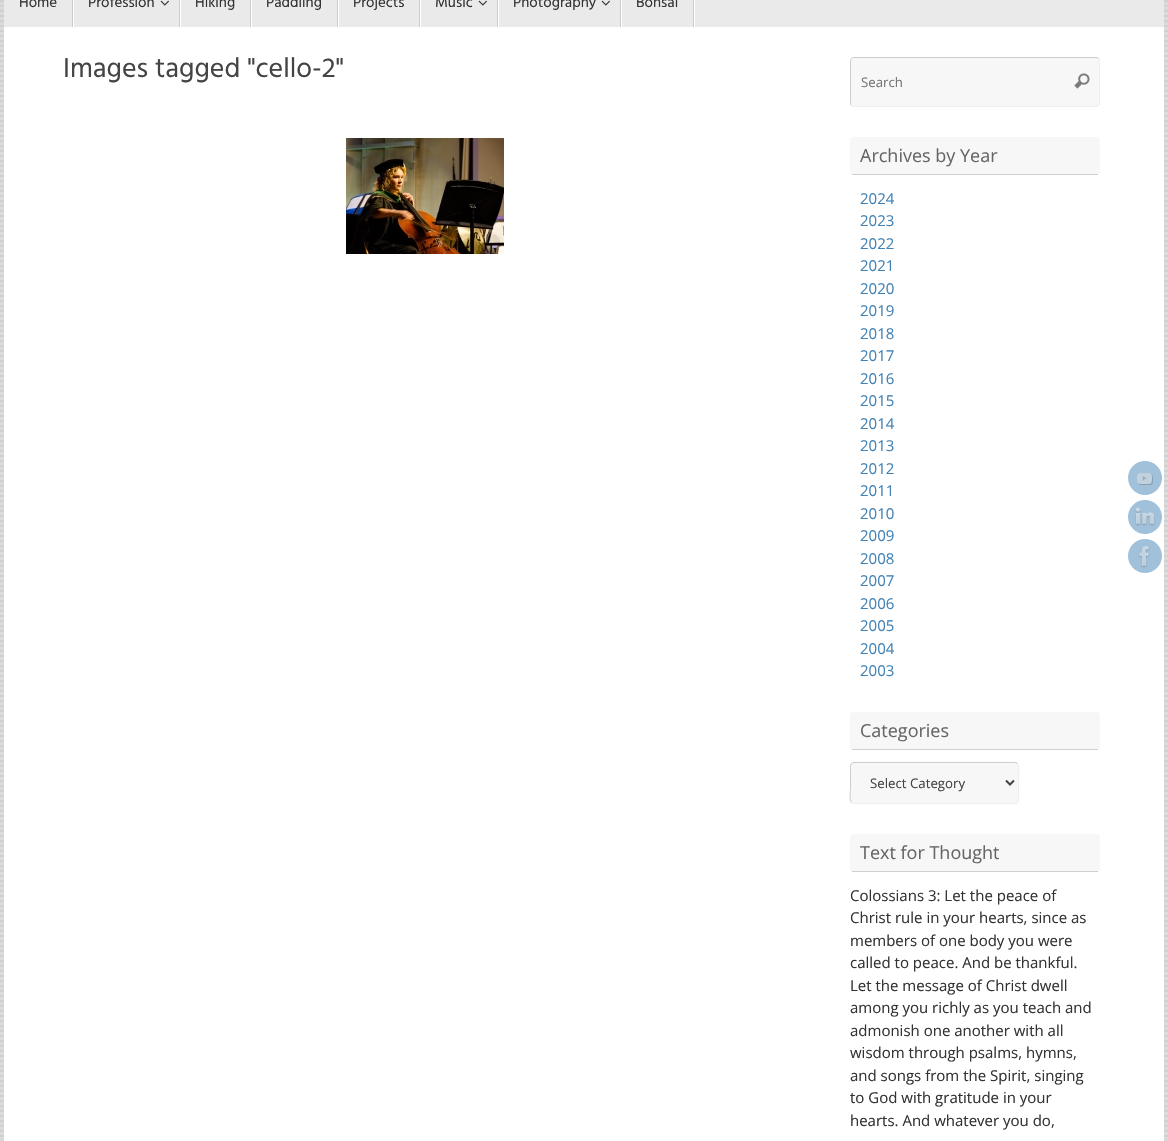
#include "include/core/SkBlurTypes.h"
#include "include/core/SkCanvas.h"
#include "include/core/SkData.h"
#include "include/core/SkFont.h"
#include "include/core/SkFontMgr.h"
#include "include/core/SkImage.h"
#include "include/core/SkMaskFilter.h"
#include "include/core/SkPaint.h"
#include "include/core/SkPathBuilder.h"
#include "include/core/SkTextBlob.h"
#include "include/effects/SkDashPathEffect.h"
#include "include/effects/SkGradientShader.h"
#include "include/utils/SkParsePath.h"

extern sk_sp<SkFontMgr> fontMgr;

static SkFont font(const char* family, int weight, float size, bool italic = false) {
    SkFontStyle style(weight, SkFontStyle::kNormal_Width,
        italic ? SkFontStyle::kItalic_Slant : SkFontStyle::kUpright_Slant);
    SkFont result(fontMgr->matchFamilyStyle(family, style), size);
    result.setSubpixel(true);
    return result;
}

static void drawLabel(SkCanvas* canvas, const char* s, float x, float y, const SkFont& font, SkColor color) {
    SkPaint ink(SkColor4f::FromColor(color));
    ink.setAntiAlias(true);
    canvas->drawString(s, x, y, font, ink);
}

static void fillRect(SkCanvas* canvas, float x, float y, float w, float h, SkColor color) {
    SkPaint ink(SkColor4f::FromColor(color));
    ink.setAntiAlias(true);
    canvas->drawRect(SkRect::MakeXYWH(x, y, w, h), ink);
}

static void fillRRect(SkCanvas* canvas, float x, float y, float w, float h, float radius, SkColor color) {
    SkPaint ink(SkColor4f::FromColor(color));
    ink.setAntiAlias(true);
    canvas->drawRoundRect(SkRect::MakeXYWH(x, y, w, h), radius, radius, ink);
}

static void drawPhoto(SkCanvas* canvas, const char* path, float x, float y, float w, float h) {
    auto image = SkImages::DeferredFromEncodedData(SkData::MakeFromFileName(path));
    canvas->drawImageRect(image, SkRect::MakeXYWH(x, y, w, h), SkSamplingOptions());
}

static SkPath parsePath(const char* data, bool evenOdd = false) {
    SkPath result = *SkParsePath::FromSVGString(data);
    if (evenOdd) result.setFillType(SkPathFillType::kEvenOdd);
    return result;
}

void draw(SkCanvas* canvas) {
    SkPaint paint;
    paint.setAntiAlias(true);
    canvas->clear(0xFFFFFFFF);
    drawPhoto(canvas, "assets/img1.png", 0, 0, 1168, 1141);
    fillRect(canvas, 4, 0, 1160, 27, 0xFFEAEAEA);
    fillRect(canvas, 73, 0, 1, 27, 0xFFFFFFFF);
    fillRect(canvas, 72, 0, 1, 27, 0xFFCCCCCC);
    SkFont font1 = font("Hind", 400, 15);
    drawLabel(canvas, "Home", 19, 7, font1, 0xFF333333);
    fillRect(canvas, 180, 0, 1, 27, 0xFFFFFFFF);
    fillRect(canvas, 179, 0, 1, 27, 0xFFCCCCCC);
    drawLabel(canvas, "Profession", 88, 7, font1, 0xFF333333);
    drawPhoto(canvas, "assets/img2.png", 160, 0, 9, 6);
    fillRect(canvas, 251, 0, 1, 27, 0xFFFFFFFF);
    fillRect(canvas, 250, 0, 1, 27, 0xFFCCCCCC);
    drawLabel(canvas, "Hiking", 195, 7, font1, 0xFF333333);
    fillRect(canvas, 338, 0, 1, 27, 0xFFFFFFFF);
    fillRect(canvas, 337, 0, 1, 27, 0xFFCCCCCC);
    drawLabel(canvas, "Paddling", 266, 7, font1, 0xFF333333);
    fillRect(canvas, 420, 0, 1, 27, 0xFFFFFFFF);
    fillRect(canvas, 419, 0, 1, 27, 0xFFCCCCCC);
    drawLabel(canvas, "Projects", 353, 7, font1, 0xFF333333);
    fillRect(canvas, 498, 0, 1, 27, 0xFFFFFFFF);
    fillRect(canvas, 497, 0, 1, 27, 0xFFCCCCCC);
    drawLabel(canvas, "Music", 435, 7, font1, 0xFF333333);
    drawPhoto(canvas, "assets/img2.png", 478, 0, 9, 6);
    fillRect(canvas, 621, 0, 1, 27, 0xFFFFFFFF);
    fillRect(canvas, 620, 0, 1, 27, 0xFFCCCCCC);
    drawLabel(canvas, "Photography", 513, 7, font1, 0xFF333333);
    drawPhoto(canvas, "assets/img2.png", 601, 0, 9, 6);
    fillRect(canvas, 694, 0, 1, 27, 0xFFFFFFFF);
    fillRect(canvas, 693, 0, 1, 27, 0xFFCCCCCC);
    drawLabel(canvas, "Bonsai", 636, 7, font1, 0xFF333333);
    fillRect(canvas, 4, 27, 1160, 1114, 0xFFFFFFFF);
    SkFont font2 = font("Hind", 400, 28);
    drawLabel(canvas, "Images tagged \"cello-2\"", 63, 77, font2, 0xFF444444);
    drawPhoto(canvas, "assets/img3.png", 346, 138, 158, 116);
    fillRRect(canvas, 850, 57, 250, 50, 4, 0xFFF7F7F7);
    paint.setStroke(true);
    paint.setStrokeWidth(1);
    paint.setColor(0xFFEEEEEE);
    canvas->drawPath(parsePath("M1098.5 58.5C1099 59 1099.5 60 1099.5 61V103C1099.5 104 1099 105 1098.5 105.5C1098 106 1097 106.5 1096 106.5H854C853 106.5 852 106 851.5 105.5"), paint);
    paint.setColor(0xFFCCCCCC);
    canvas->drawPath(parsePath("M851.5 105.5C851 105 850.5 104 850.5 103V61C850.5 60 851 59 851.5 58.5C852 58 853 57.5 854 57.5H1096C1097 57.5 1098 58 1098.5 58.5"), paint);
    SkFont font3 = font("Open Sans", 400, 13.25f);
    drawLabel(canvas, "Search", 861, 87, font3, 0xFF757575);
    drawPhoto(canvas, "assets/img4.png", 1074, 73, 16, 16);
    fillRRect(canvas, 850, 137, 250, 38, 4, 0xFFF7F7F7);
    fillRect(canvas, 852, 174, 246, 1, 0xFFCFCFCF);
    SkFont font4 = font("Open Sans", 400, 18);
    drawLabel(canvas, "Archives by Year", 860, 162, font4, 0xFF666666);
    SkFont font5 = font("Open Sans", 400, 15);
    drawLabel(canvas, "2024", 860, 204, font5, 0xFF4282B4);
    drawLabel(canvas, "2023", 860, 226, font5, 0xFF4282B4);
    drawLabel(canvas, "2022", 860, 249, font5, 0xFF4282B4);
    drawLabel(canvas, "2021", 860, 271, font5, 0xFF4282B4);
    drawLabel(canvas, "2020", 860, 294, font5, 0xFF4282B4);
    drawLabel(canvas, "2019", 860, 316, font5, 0xFF4282B4);
    drawLabel(canvas, "2018", 860, 339, font5, 0xFF4282B4);
    drawLabel(canvas, "2017", 860, 361, font5, 0xFF4282B4);
    drawLabel(canvas, "2016", 860, 384, font5, 0xFF4282B4);
    drawLabel(canvas, "2015", 860, 406, font5, 0xFF4282B4);
    drawLabel(canvas, "2014", 860, 429, font5, 0xFF4282B4);
    drawLabel(canvas, "2013", 860, 451, font5, 0xFF4282B4);
    drawLabel(canvas, "2012", 860, 474, font5, 0xFF4282B4);
    drawLabel(canvas, "2011", 860, 496, font5, 0xFF4282B4);
    drawLabel(canvas, "2010", 860, 519, font5, 0xFF4282B4);
    drawLabel(canvas, "2009", 860, 541, font5, 0xFF4282B4);
    drawLabel(canvas, "2008", 860, 564, font5, 0xFF4282B4);
    drawLabel(canvas, "2007", 860, 586, font5, 0xFF4282B4);
    drawLabel(canvas, "2006", 860, 609, font5, 0xFF4282B4);
    drawLabel(canvas, "2005", 860, 631, font5, 0xFF4282B4);
    drawLabel(canvas, "2004", 860, 654, font5, 0xFF4282B4);
    drawLabel(canvas, "2003", 860, 676, font5, 0xFF4282B4);
    fillRRect(canvas, 850, 712, 250, 38, 4, 0xFFF7F7F7);
    fillRect(canvas, 852, 749, 246, 1, 0xFFCFCFCF);
    drawLabel(canvas, "Categories", 860, 737, font4, 0xFF666666);
    fillRRect(canvas, 850, 762, 169, 42, 4, 0xFFF7F7F7);
    paint.setColor(0xFFEEEEEE);
    canvas->drawPath(parsePath("M1017.5 763.5C1020 766 1018.5 774.5 1018.5 777.5V794.5C1018.5 797 1019.5 803.5 1015 803.5H853.5L851.5 802.5"), paint);
    paint.setColor(0xFFCCCCCC);
    canvas->drawPath(parsePath("M851.5 802.5C849 800 850.5 791.5 850.5 788.5V771.5C850.5 769 849.5 762.5 854 762.5H1015.5L1017.5 763.5"), paint);
    paint.setStrokeWidth(2);
    paint.setColor(0xFF444444);
    canvas->drawPath(parsePath("M1006 780.5L1010 784.5L1014 780.5"), paint);
    drawLabel(canvas, "Select Category", 870, 788, font3, 0xFF444444);
    fillRRect(canvas, 850, 834, 250, 38, 4, 0xFFF7F7F7);
    fillRect(canvas, 852, 871, 246, 1, 0xFFCFCFCF);
    drawLabel(canvas, "Text for Thought", 860, 859, font4, 0xFF666666);
    drawLabel(canvas, "Colossians 3: Let the peace of", 850, 901, font5, 0xFF333333);
    drawLabel(canvas, "Christ rule in your hearts, since as", 850, 923, font5, 0xFF333333);
    drawLabel(canvas, "members of one body you were", 850, 946, font5, 0xFF333333);
    drawLabel(canvas, "called to peace. And be thankful.", 850, 968, font5, 0xFF333333);
    drawLabel(canvas, "Let the message of Christ dwell", 850, 991, font5, 0xFF333333);
    drawLabel(canvas, "among you richly as you teach and", 850, 1013, font5, 0xFF333333);
    drawLabel(canvas, "admonish one another with all", 850, 1036, font5, 0xFF333333);
    drawLabel(canvas, "wisdom through psalms, hymns,", 850, 1058, font5, 0xFF333333);
    drawLabel(canvas, "and songs from the Spirit, singing", 850, 1081, font5, 0xFF333333);
    drawLabel(canvas, "to God with gratitude in your", 850, 1103, font5, 0xFF333333);
    drawLabel(canvas, "hearts. And whatever you do,", 850, 1126, font5, 0xFF333333);
    paint.setStroke(false);
    paint.setColor(0xFFA1C1DA);
    canvas->drawCircle(1145, 478, 17, paint);
    drawPhoto(canvas, "assets/img5.png", 1137, 473, 16, 12);
    canvas->drawCircle(1145, 517, 17, paint);
    drawPhoto(canvas, "assets/img6.png", 1135, 507, 20, 19);
    canvas->drawCircle(1145, 556, 17, paint);
    drawPhoto(canvas, "assets/img7.png", 1138, 546, 12, 22);
}
